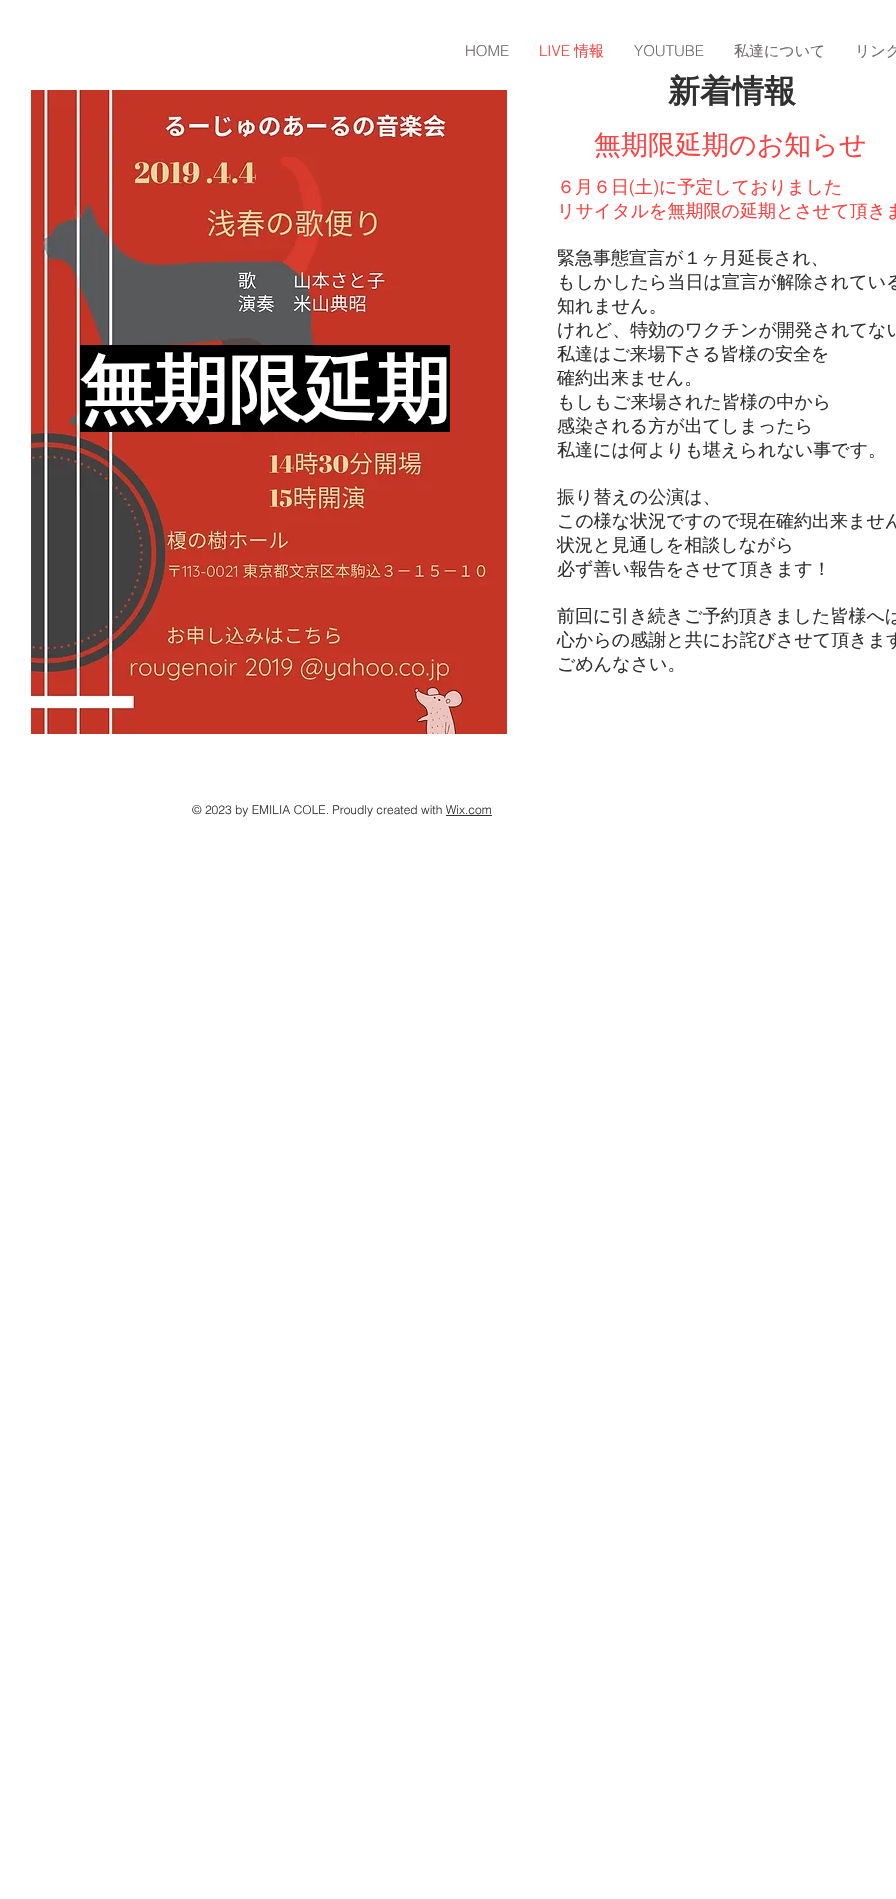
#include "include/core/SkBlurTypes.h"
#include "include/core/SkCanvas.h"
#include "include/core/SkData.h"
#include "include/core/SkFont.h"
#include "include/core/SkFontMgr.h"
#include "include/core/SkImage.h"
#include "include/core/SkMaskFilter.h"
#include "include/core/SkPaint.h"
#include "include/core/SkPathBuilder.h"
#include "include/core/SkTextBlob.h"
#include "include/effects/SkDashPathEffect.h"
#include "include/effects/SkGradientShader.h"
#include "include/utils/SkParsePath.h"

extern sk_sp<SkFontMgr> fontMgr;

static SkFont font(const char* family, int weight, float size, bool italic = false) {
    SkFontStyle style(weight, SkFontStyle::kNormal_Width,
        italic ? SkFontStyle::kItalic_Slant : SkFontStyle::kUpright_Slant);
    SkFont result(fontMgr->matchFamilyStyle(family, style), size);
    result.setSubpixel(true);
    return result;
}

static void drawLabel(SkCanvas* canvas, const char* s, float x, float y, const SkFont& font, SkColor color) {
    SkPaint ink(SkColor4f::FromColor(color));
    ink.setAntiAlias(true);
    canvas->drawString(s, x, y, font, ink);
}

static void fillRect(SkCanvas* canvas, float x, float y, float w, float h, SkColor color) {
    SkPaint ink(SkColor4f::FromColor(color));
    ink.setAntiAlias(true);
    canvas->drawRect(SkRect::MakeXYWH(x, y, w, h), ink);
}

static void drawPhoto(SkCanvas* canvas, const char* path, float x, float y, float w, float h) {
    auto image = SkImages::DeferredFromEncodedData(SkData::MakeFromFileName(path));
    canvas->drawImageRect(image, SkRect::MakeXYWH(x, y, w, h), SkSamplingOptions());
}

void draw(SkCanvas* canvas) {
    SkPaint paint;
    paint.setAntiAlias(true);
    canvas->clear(0xFFFFFFFF);
    SkFont font1 = font("helvetica", 300, 15);
    drawLabel(canvas, "HOME", 465, 56, font1, 0xFF706D6C);
    drawLabel(canvas, "LIVE", 539, 56, font1, 0xFFFF4040);
    SkFont font2 = font("WenQuanYi Zen Hei", 500, 15);
    drawLabel(canvas, "情報", 574, 56, font2, 0xFFFF4040);
    drawLabel(canvas, "YOUTUBE", 634, 56, font1, 0xFF706D6C);
    drawLabel(canvas, "私達について", 734, 56, font2, 0xFF706D6C);
    drawLabel(canvas, "リンク", 855, 56, font2, 0xFF706D6C);
    drawPhoto(canvas, "assets/img1.png", 31, 90, 476, 644);
    SkFont font3 = font("WenQuanYi Zen Hei", 700, 32);
    drawLabel(canvas, "新着情報", 668, 102, font3, 0xFF303030);
    SkFont font4 = font("WenQuanYi Zen Hei", 500, 27);
    drawLabel(canvas, "無期限延期のお知らせ", 594, 154, font4, 0xFFFF4040);
    fillRect(canvas, 80, 345, 370, 87, 0xFF000000);
    SkFont font5 = font("WenQuanYi Zen Hei", 700, 74);
    drawLabel(canvas, "無期限延期", 80, 415, font5, 0xFFFFFFFF);
    SkFont font6 = font("WenQuanYi Zen Hei", 500, 18);
    drawLabel(canvas, "６月６日", 557, 193, font6, 0xFFFF4040);
    SkFont font7 = font("helvetica", 300, 18);
    drawLabel(canvas, "(", 629, 193, font7, 0xFFFF4040);
    drawLabel(canvas, "土", 635, 193, font6, 0xFFFF4040);
    drawLabel(canvas, ")", 653, 193, font7, 0xFFFF4040);
    drawLabel(canvas, "に予定しておりました", 659, 193, font6, 0xFFFF4040);
    drawLabel(canvas, "リサイタルを無期限の延期とさせて頂きま", 557, 217, font6, 0xFFFF4040);
    drawLabel(canvas, "緊急事態宣言が１ヶ月延長され、", 557, 264, font6, 0xFF303030);
    drawLabel(canvas, "もしかしたら当日は宣言が解除されている", 557, 288, font6, 0xFF303030);
    drawLabel(canvas, "知れません。", 557, 312, font6, 0xFF303030);
    drawLabel(canvas, "けれど、特効のワクチンが開発されてない", 557, 336, font6, 0xFF303030);
    drawLabel(canvas, "私達はご来場下さる皆様の安全を", 557, 360, font6, 0xFF303030);
    drawLabel(canvas, "確約出来ません。", 557, 384, font6, 0xFF303030);
    drawLabel(canvas, "もしもご来場された皆様の中から", 557, 408, font6, 0xFF303030);
    drawLabel(canvas, "感染される方が出てしまったら", 557, 432, font6, 0xFF303030);
    drawLabel(canvas, "私達には何よりも堪えられない事です。", 557, 456, font6, 0xFF303030);
    drawLabel(canvas, "振り替えの公演は、", 557, 503, font6, 0xFF303030);
    drawLabel(canvas, "この様な状況ですので現在確約出来ません", 557, 527, font6, 0xFF303030);
    drawLabel(canvas, "状況と見通しを相談しながら", 557, 551, font6, 0xFF303030);
    drawLabel(canvas, "必ず善い報告をさせて頂きます！", 557, 575, font6, 0xFF303030);
    drawLabel(canvas, "前回に引き続きご予約頂きました皆様へは", 557, 622, font6, 0xFF303030);
    drawLabel(canvas, "心からの感謝と共にお詫びさせて頂きます", 557, 646, font6, 0xFF303030);
    drawLabel(canvas, "ごめんなさい。", 557, 670, font6, 0xFF303030);
    SkFont font8 = font("helvetica", 300, 12);
    drawLabel(canvas, "© 2023 by EMILIA COLE. Proudly created with Wix.com", 192, 814, font8, 0xFF303030);
    fillRect(canvas, 446, 815, 46, 1, 0xFF303030);
}
